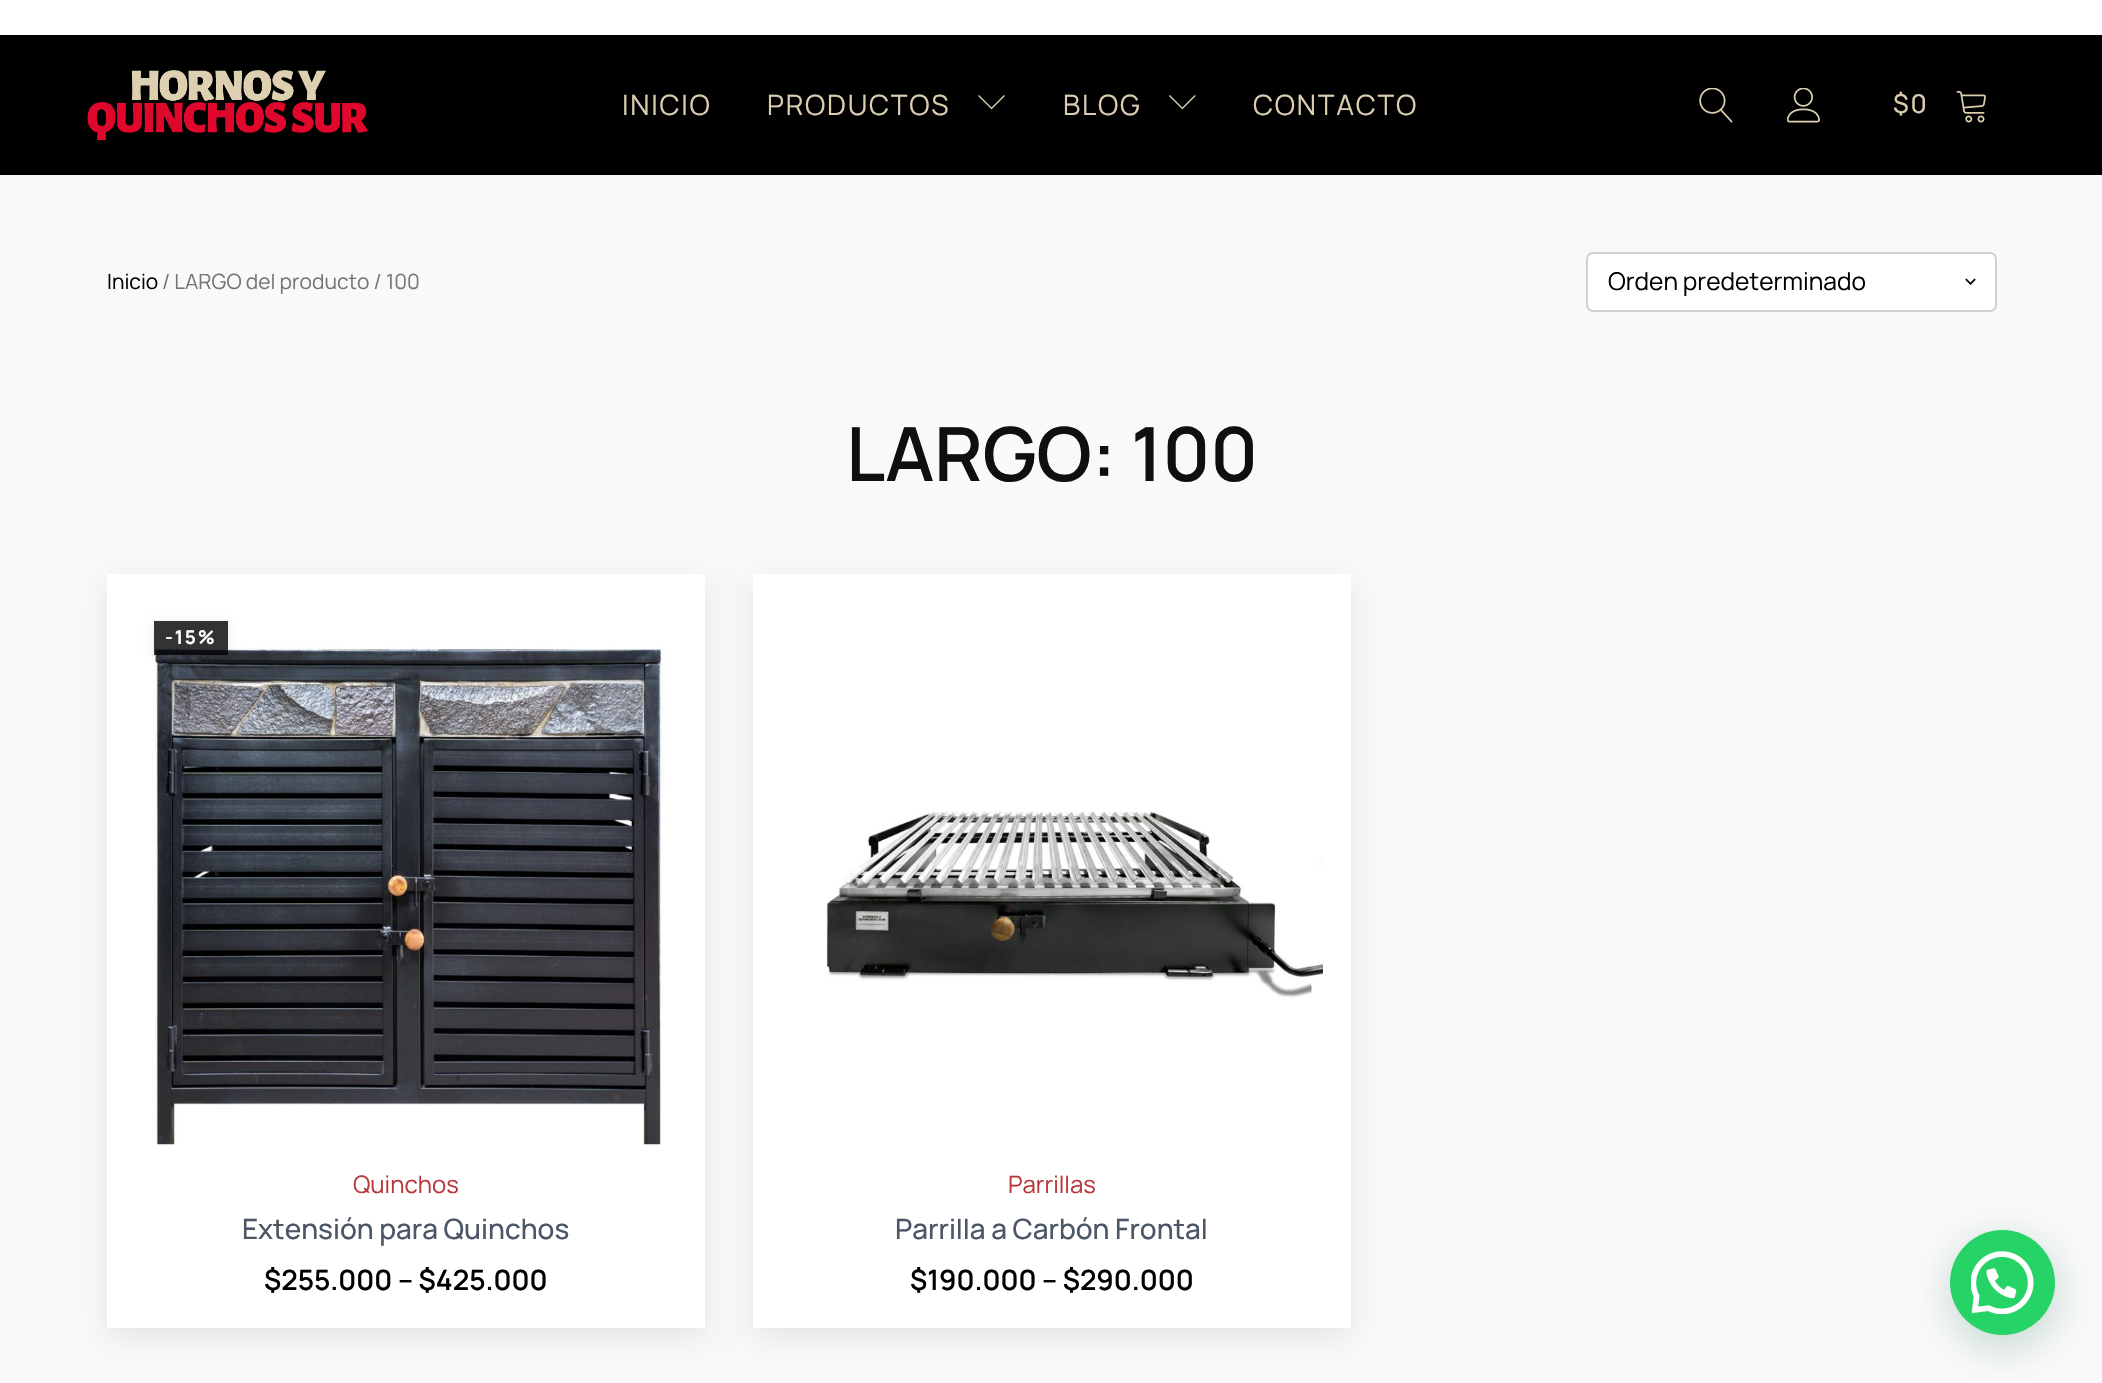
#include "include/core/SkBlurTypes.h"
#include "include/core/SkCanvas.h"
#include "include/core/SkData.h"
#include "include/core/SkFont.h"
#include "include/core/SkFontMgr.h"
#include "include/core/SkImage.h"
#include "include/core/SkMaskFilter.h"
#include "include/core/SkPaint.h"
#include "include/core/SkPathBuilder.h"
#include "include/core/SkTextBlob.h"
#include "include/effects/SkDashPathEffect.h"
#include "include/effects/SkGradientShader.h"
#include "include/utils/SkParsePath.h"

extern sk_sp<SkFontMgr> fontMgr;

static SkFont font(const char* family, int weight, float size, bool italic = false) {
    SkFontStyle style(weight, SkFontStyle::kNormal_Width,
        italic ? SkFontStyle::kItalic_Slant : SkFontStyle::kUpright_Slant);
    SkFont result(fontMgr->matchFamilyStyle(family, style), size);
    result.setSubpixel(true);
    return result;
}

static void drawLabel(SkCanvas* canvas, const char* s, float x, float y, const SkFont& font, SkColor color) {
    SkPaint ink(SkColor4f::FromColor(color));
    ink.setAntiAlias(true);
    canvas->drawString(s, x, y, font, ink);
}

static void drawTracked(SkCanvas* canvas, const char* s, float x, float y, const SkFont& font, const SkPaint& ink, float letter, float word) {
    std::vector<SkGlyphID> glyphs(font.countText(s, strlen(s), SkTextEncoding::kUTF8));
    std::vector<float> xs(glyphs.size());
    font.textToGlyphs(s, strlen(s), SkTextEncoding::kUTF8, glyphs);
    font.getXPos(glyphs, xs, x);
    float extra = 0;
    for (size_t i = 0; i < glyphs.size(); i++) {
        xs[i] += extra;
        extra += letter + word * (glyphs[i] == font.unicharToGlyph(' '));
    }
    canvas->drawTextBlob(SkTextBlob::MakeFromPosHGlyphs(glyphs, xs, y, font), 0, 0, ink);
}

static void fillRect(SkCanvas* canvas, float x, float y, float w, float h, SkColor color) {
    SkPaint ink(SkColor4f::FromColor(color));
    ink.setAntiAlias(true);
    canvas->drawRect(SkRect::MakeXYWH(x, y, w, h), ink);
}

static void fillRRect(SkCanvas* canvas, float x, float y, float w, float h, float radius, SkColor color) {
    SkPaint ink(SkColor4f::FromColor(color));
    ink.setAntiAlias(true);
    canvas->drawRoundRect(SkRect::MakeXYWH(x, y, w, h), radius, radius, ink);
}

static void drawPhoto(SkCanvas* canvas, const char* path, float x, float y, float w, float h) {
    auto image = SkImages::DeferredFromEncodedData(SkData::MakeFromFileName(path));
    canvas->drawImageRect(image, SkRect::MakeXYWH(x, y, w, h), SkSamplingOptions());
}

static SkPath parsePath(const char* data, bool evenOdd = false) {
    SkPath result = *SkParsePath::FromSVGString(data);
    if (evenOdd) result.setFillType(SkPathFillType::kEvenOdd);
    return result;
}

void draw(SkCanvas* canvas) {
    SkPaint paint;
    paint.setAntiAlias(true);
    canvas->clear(0xFFFFFFFF);
    fillRect(canvas, 0, 35, 2102, 140, 0xFF000000);
    drawPhoto(canvas, "assets/img1.png", 87, 70, 281, 70);
    SkFont font1 = font("Manrope", 400, 28);
    paint.setColor(0xFFDBCEB0);
    drawTracked(canvas, "INICIO", 622, 115, font1, paint, 1.75f, 0);
    drawTracked(canvas, "PRODUCTOS", 767, 115, font1, paint, 1.75f, 0);
    drawPhoto(canvas, "assets/img2.png", 978, 95, 27, 15);
    drawTracked(canvas, "BLOG", 1063, 115, font1, paint, 1.75f, 0);
    drawPhoto(canvas, "assets/img3.png", 1169, 95, 27, 15);
    drawTracked(canvas, "CONTACTO", 1253, 115, font1, paint, 1.75f, 0);
    drawPhoto(canvas, "assets/img4.png", 1699, 88, 34, 35);
    drawPhoto(canvas, "assets/img5.png", 1787, 88, 33, 35);
    SkFont font2 = font("Manrope", 500, 26);
    drawTracked(canvas, "$0", 1893, 113, font2, paint, 1.75f, 0);
    drawPhoto(canvas, "assets/img6.png", 1956, 91, 30, 32);
    fillRect(canvas, 0, 175, 2102, 1208, 0xFFF9F9F9);
    SkFont font3 = font("Manrope", 400, 21);
    drawLabel(canvas, "Inicio", 107, 289, font3, 0xFF000000);
    drawLabel(canvas, "/ LARGO del producto / 100", 162, 289, font3, 0xFF767676);
    fillRRect(canvas, 1586, 252, 411, 60, 7, 0xFFFFFFFF);
    drawPhoto(canvas, "assets/img7.png", 1965, 278, 11, 7);
    paint.setStroke(true);
    paint.setStrokeWidth(2);
    paint.setColor(0xFFD3CED2);
    canvas->drawRoundRect(SkRect::MakeXYWH(1587, 253, 409, 58), 6, 6, paint);
    SkFont font4 = font("Manrope", 400, 24.5f);
    drawLabel(canvas, "Orden predeterminado", 1608, 290, font4, 0xFF000000);
    SkFont font5 = font("Manrope", 600, 74.5f);
    drawLabel(canvas, "LARGO: 100", 846, 481, font5, 0xFF0F0F0F);
    paint.setStroke(false);
    paint.setColor(0x14000000);
    paint.setMaskFilter(SkMaskFilter::MakeBlur(kNormal_SkBlurStyle, 13));
    canvas->drawRect(SkRect::MakeXYWH(107, 583, 598, 754), paint);
    paint.setMaskFilter(nullptr);
    fillRect(canvas, 107, 574, 598, 754, 0xFFFFFFFF);
    drawPhoto(canvas, "assets/img8.png", 152, 647, 514, 498);
    canvas->save();
    canvas->clipPath(parsePath("M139 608H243V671H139ZM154 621H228V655H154Z", true), true);
    paint.setColor(0x17000000);
    paint.setMaskFilter(SkMaskFilter::MakeBlur(kNormal_SkBlurStyle, 4.5f));
    canvas->drawRect(SkRect::MakeXYWH(154, 623, 74, 33), paint);
    paint.setMaskFilter(nullptr);
    canvas->restore();
    fillRect(canvas, 154, 621, 74, 34, 0xCC000000);
    SkFont font6 = font("Manrope", 700, 19);
    paint.setColor(0xFFFFFFFF);
    drawTracked(canvas, "-15%", 165, 644, font6, paint, 1.75f, 0);
    SkFont font7 = font("Manrope", 400, 24);
    drawLabel(canvas, "Quinchos", 353, 1193, font7, 0xFFBA3739);
    SkFont font8 = font("Manrope", 500, 28);
    drawLabel(canvas, "Extensión para Quinchos", 242, 1239, font8, 0xFF4B5666);
    SkFont font9 = font("Manrope", 600, 28);
    drawLabel(canvas, "$255.000 – $425.000", 264, 1290, font9, 0xFF000000);
    paint.setColor(0x14000000);
    paint.setMaskFilter(SkMaskFilter::MakeBlur(kNormal_SkBlurStyle, 13));
    canvas->drawRect(SkRect::MakeXYWH(753, 583, 598, 754), paint);
    paint.setMaskFilter(nullptr);
    fillRect(canvas, 753, 574, 598, 754, 0xFFFFFFFF);
    drawPhoto(canvas, "assets/img9.png", 826, 811, 497, 187);
    drawLabel(canvas, "Parrillas", 1008, 1193, font7, 0xFFBA3739);
    drawLabel(canvas, "Parrilla a Carbón Frontal", 895, 1239, font8, 0xFF4B5666);
    drawLabel(canvas, "$190.000 – $290.000", 910, 1290, font9, 0xFF000000);
    paint.setColor(0x3D075E54);
    paint.setMaskFilter(SkMaskFilter::MakeBlur(kNormal_SkBlurStyle, 21));
    canvas->drawRoundRect(SkRect::MakeXYWH(1951, 1241, 105, 105), 52.5f, 52.5f, paint);
    paint.setMaskFilter(nullptr);
    paint.setColor(0xFF25D366);
    canvas->drawCircle(2002.5f, 1282.5f, 52.5f, paint);
    drawPhoto(canvas, "assets/img10.png", 1971, 1251, 63, 63);
}
